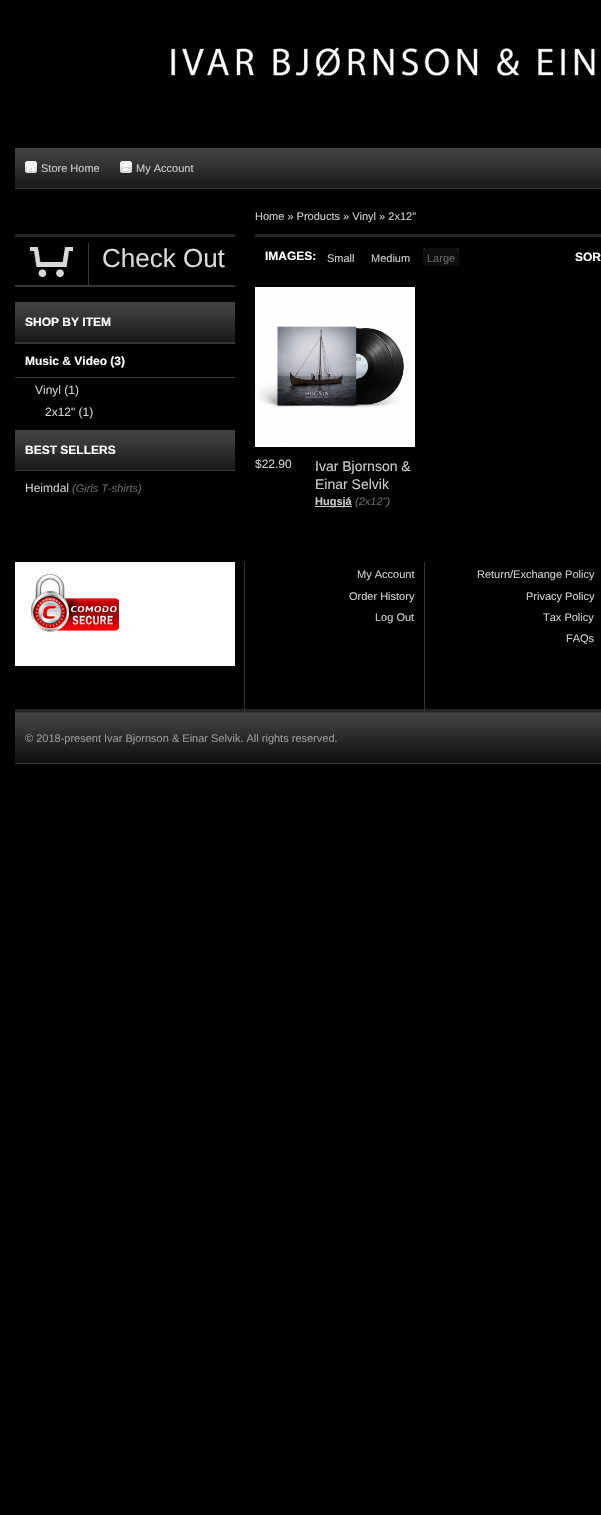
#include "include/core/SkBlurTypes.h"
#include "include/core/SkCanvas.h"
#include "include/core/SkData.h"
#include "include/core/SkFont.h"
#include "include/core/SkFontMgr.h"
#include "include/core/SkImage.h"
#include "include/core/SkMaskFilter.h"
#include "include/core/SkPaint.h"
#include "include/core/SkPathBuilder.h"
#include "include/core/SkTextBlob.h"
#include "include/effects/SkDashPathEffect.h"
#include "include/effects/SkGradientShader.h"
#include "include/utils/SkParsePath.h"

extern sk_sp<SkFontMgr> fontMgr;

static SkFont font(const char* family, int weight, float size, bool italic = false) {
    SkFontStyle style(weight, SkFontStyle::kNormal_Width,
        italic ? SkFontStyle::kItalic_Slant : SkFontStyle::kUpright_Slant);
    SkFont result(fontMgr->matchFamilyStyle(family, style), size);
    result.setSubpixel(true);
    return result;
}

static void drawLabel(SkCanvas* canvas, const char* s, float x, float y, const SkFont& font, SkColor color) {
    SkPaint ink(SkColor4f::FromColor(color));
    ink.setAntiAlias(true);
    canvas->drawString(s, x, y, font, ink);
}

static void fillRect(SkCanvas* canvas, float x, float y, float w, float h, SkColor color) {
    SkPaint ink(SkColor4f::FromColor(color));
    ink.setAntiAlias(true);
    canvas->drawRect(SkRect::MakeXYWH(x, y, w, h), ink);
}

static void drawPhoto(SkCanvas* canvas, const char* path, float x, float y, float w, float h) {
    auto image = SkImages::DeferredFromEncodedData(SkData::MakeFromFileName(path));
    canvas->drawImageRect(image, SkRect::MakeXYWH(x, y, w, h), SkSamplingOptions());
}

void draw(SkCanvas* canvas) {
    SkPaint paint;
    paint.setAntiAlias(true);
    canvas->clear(0xFF000000);
    drawPhoto(canvas, "assets/img1.png", 171, 47, 427, 33);
    drawPhoto(canvas, "assets/img2.png", 15, 148, 586, 40);
    fillRect(canvas, 15, 188, 586, 1, 0xFF363636);
    fillRect(canvas, 25, 161, 12, 12, 0xFFFFFFFF);
    drawPhoto(canvas, "assets/img3.png", 25, 161, 12, 12);
    SkFont font1 = font("Liberation Sans", 400, 11);
    drawLabel(canvas, "Store Home", 41, 172, font1, 0xFFCCCCCC);
    fillRect(canvas, 120, 161, 12, 12, 0xFFFFFFFF);
    drawPhoto(canvas, "assets/img4.png", 120, 161, 12, 12);
    drawLabel(canvas, "My Account", 136, 172, font1, 0xFFCCCCCC);
    fillRect(canvas, 15, 234, 220, 3, 0xFF252525);
    fillRect(canvas, 15, 285, 220, 2, 0xFF363636);
    drawPhoto(canvas, "assets/img5.png", 30, 247, 43, 30);
    fillRect(canvas, 88, 243, 1, 42, 0xFF363636);
    SkFont font2 = font("Liberation Sans", 400, 26);
    drawLabel(canvas, "Check Out", 102, 267, font2, 0xFFD9D9D9);
    drawPhoto(canvas, "assets/img6.png", 15, 302, 220, 40);
    fillRect(canvas, 15, 342, 220, 2, 0xFF363636);
    SkFont font3 = font("Liberation Sans", 700, 12);
    drawLabel(canvas, "SHOP BY ITEM", 25, 326, font3, 0xFFFFFFFF);
    fillRect(canvas, 15, 377, 220, 1, 0xFF363636);
    drawLabel(canvas, "Music & Video (3)", 25, 365, font3, 0xFFFFFFFF);
    SkFont font4 = font("Liberation Sans", 400, 12);
    drawLabel(canvas, "Vinyl (1)", 35, 394, font4, 0xFFCCCCCC);
    drawLabel(canvas, "2x12\" (1)", 45, 416, font4, 0xFFCCCCCC);
    drawPhoto(canvas, "assets/img6.png", 15, 430, 220, 40);
    fillRect(canvas, 15, 470, 220, 1, 0xFF363636);
    drawLabel(canvas, "BEST SELLERS", 25, 454, font3, 0xFFFFFFFF);
    drawLabel(canvas, "Heimdal", 25, 492, font4, 0xFFCCCCCC);
    SkFont font5 = font("Liberation Sans", 400, 11, true);
    drawLabel(canvas, "(Girls T-shirts)", 72, 492, font5, 0xFF666666);
    fillRect(canvas, 255, 234, 346, 3, 0xFF252525);
    drawLabel(canvas, "Home » Products » Vinyl » 2x12\"", 255, 220, font1, 0xFFCCCCCC);
    drawLabel(canvas, "IMAGES:", 265, 260, font3, 0xFFFFFFFF);
    drawLabel(canvas, "Small", 327, 262, font1, 0xFFCCCCCC);
    drawLabel(canvas, "Medium", 371, 262, font1, 0xFFCCCCCC);
    drawPhoto(canvas, "assets/img7.png", 423, 248, 2, 18);
    fillRect(canvas, 425, 248, 32, 18, 0xFF0E0E0E);
    drawLabel(canvas, "Large", 427, 262, font1, 0xFF666666);
    drawPhoto(canvas, "assets/img8.png", 457, 248, 2, 18);
    drawLabel(canvas, "SOR", 575, 261, font3, 0xFFFFFFFF);
    drawPhoto(canvas, "assets/img9.png", 255, 287, 160, 160);
    drawLabel(canvas, "$22.90", 255, 468, font4, 0xFFCCCCCC);
    SkFont font6 = font("Liberation Sans", 400, 14);
    drawLabel(canvas, "Ivar Bjornson &", 315, 471, font6, 0xFFCCCCCC);
    drawLabel(canvas, "Einar Selvik", 315, 489, font6, 0xFFCCCCCC);
    fillRect(canvas, 315, 506, 37, 1, 0xFFCCCCCC);
    SkFont font7 = font("Liberation Sans", 700, 11);
    drawLabel(canvas, "Hugsjá", 315, 505, font7, 0xFFCCCCCC);
    drawLabel(canvas, "(2x12\")", 355, 505, font5, 0xFF666666);
    fillRect(canvas, 15, 709, 586, 3, 0xFF252525);
    fillRect(canvas, 244, 562, 1, 150, 0xFF363636);
    fillRect(canvas, 15, 562, 220, 104, 0xFFFFFFFF);
    drawPhoto(canvas, "assets/img10.png", 31, 574, 88, 58);
    fillRect(canvas, 424, 562, 1, 150, 0xFF363636);
    drawLabel(canvas, "My Account", 357, 578, font1, 0xFFCCCCCC);
    drawLabel(canvas, "Order History", 349, 600, font1, 0xFFCCCCCC);
    drawLabel(canvas, "Log Out", 375, 621, font1, 0xFFCCCCCC);
    drawLabel(canvas, "Return/Exchange Policy", 477, 578, font1, 0xFFCCCCCC);
    drawLabel(canvas, "Privacy Policy", 526, 600, font1, 0xFFCCCCCC);
    drawLabel(canvas, "Tax Policy", 543, 621, font1, 0xFFCCCCCC);
    drawLabel(canvas, "FAQs", 566, 642, font1, 0xFFCCCCCC);
    drawPhoto(canvas, "assets/img11.png", 15, 713, 586, 51);
    fillRect(canvas, 15, 712, 586, 1, 0xFF363636);
    drawLabel(canvas, "© 2018-present Ivar Bjornson & Einar Selvik. All rights reserved.", 25, 742, font1, 0xFF999999);
}
